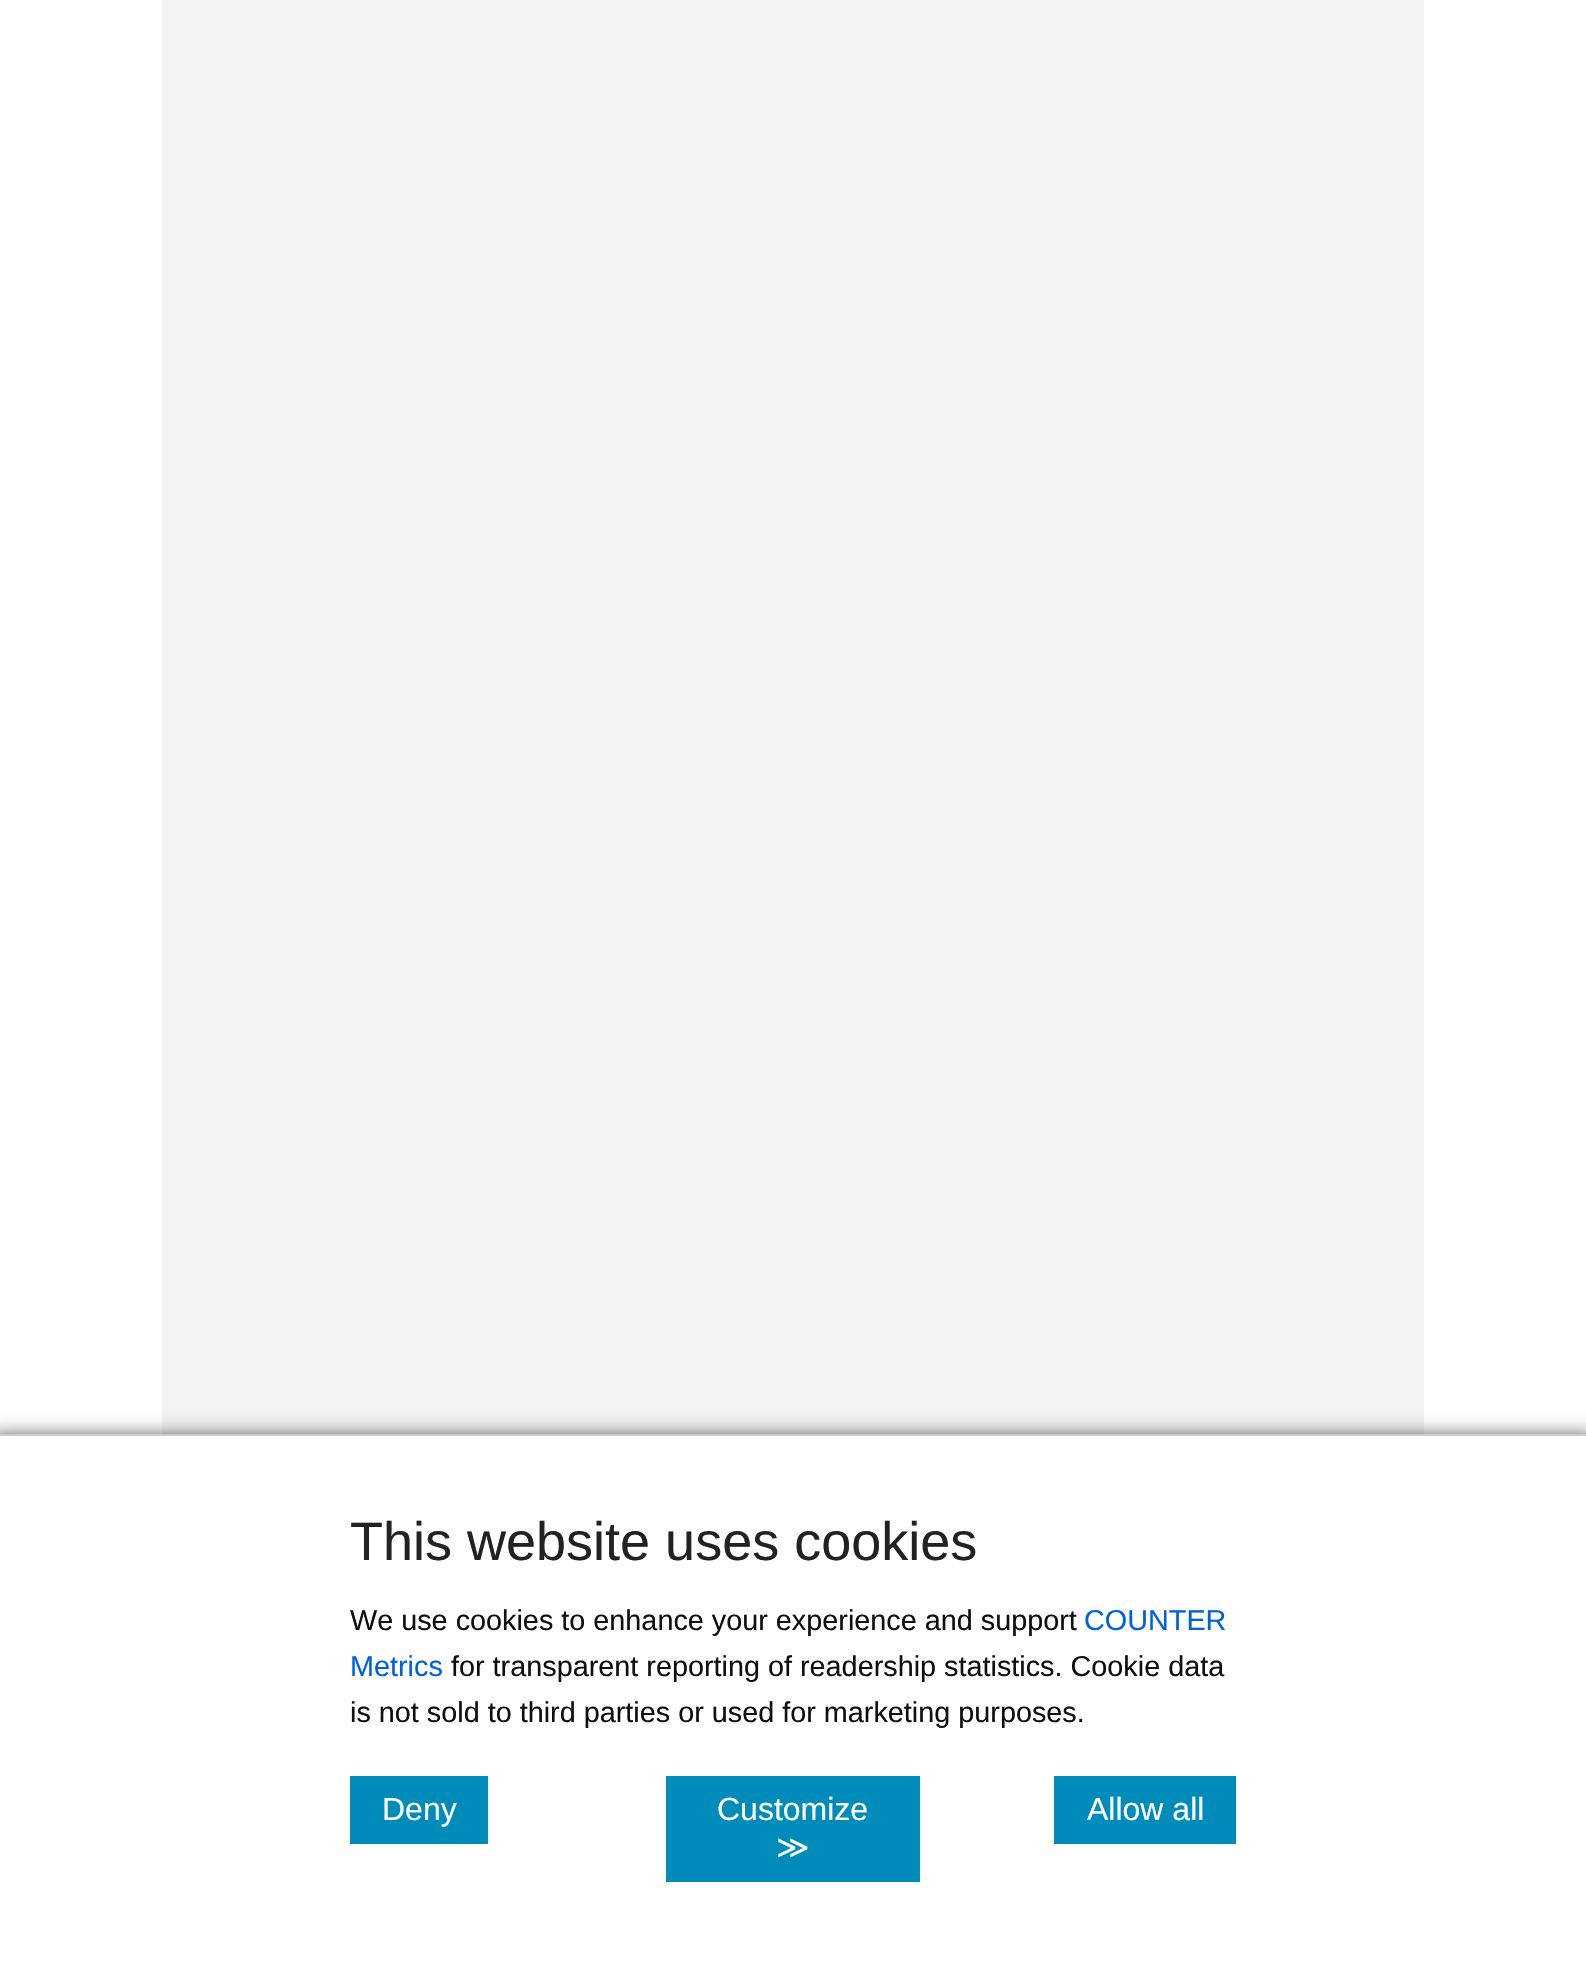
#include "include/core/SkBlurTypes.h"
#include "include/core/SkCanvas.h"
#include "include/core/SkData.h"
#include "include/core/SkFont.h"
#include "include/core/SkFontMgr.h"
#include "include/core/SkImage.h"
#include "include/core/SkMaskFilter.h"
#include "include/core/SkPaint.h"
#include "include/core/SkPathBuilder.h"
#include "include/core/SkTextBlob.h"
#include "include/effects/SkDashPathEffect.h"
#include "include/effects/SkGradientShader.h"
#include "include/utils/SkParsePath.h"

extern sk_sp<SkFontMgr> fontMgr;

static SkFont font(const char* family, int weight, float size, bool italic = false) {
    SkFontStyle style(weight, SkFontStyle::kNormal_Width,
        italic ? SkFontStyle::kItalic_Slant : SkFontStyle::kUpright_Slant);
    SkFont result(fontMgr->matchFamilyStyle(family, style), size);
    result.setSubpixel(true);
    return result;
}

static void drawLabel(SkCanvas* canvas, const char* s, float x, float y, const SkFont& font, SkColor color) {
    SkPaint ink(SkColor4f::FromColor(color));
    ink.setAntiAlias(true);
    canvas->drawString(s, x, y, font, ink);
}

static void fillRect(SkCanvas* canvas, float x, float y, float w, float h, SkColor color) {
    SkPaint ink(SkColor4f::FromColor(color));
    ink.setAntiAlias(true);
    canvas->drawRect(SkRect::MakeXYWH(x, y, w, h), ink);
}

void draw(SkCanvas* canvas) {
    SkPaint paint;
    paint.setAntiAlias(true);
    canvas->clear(0xFFFFFFFF);
    fillRect(canvas, 162, 0, 1262, 1434, 0xFFF1F3F5);
    paint.setColor(0xFF000000);
    paint.setMaskFilter(SkMaskFilter::MakeBlur(kNormal_SkBlurStyle, 11));
    canvas->drawRect(SkRect::MakeXYWH(-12, 1440, 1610, 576), paint);
    paint.setMaskFilter(nullptr);
    fillRect(canvas, 0, 1436, 1586, 549, 0xFFFFFFFF);
    fillRect(canvas, 0, 1434, 1586, 2, 0xFFCCCCCC);
    SkFont font1 = font("Liberation Sans", 400, 54);
    drawLabel(canvas, "This website uses cookies", 350, 1560, font1, 0xFF222222);
    SkFont font2 = font("Liberation Sans", 400, 28.8f);
    drawLabel(canvas, "We use cookies to enhance your experience and support", 350, 1630, font2, 0xFF0F0F0F);
    drawLabel(canvas, "COUNTER", 1084, 1630, font2, 0xFF0061E0);
    drawLabel(canvas, "Metrics", 350, 1676, font2, 0xFF0061E0);
    drawLabel(canvas, "for transparent reporting of readership statistics. Cookie data", 451, 1676, font2, 0xFF0F0F0F);
    drawLabel(canvas, "is not sold to third parties or used for marketing purposes.", 350, 1722, font2, 0xFF0F0F0F);
    fillRect(canvas, 350, 1776, 138, 68, 0xFF008CBA);
    SkFont font3 = font("Liberation Sans", 400, 32);
    drawLabel(canvas, "Deny", 382, 1820, font3, 0xFFFFFFFF);
    fillRect(canvas, 666, 1776, 254, 106, 0xFF008CBA);
    drawLabel(canvas, "Customize", 717, 1820, font3, 0xFFFFFFFF);
    SkFont font4 = font("DejaVu Sans", 400, 32);
    drawLabel(canvas, "≫", 776, 1858, font4, 0xFFFFFFFF);
    fillRect(canvas, 1054, 1776, 182, 68, 0xFF008CBA);
    drawLabel(canvas, "Allow all", 1087, 1820, font3, 0xFFFFFFFF);
}
